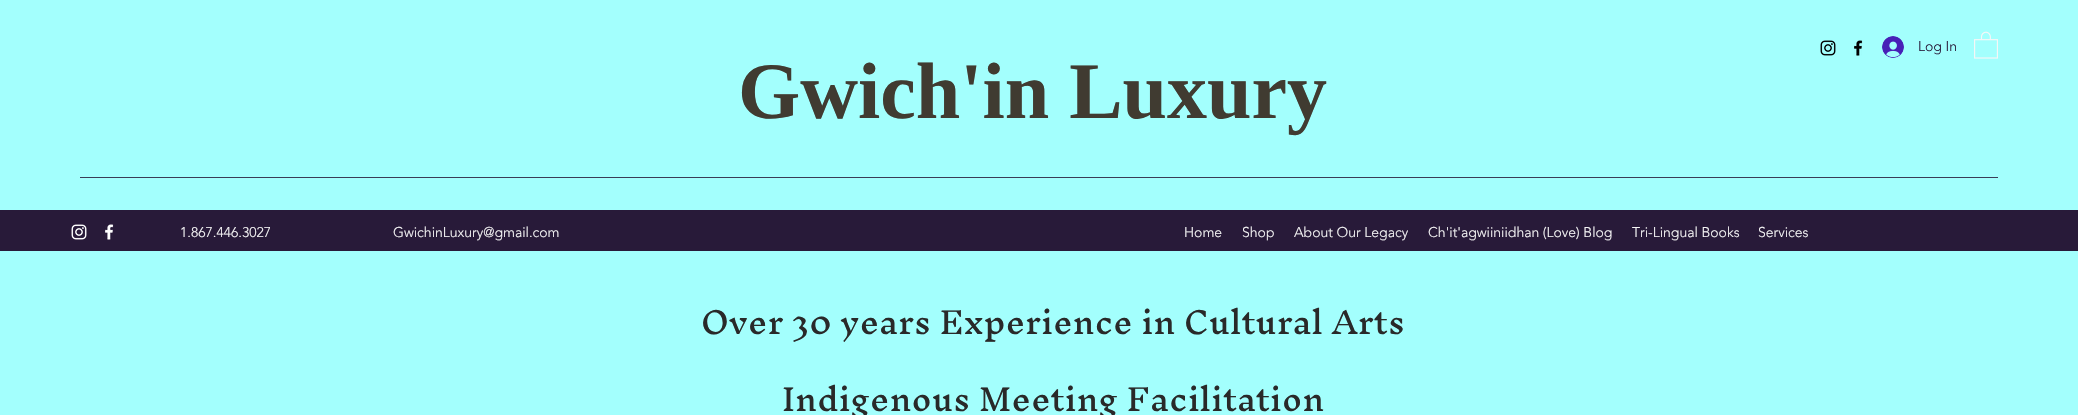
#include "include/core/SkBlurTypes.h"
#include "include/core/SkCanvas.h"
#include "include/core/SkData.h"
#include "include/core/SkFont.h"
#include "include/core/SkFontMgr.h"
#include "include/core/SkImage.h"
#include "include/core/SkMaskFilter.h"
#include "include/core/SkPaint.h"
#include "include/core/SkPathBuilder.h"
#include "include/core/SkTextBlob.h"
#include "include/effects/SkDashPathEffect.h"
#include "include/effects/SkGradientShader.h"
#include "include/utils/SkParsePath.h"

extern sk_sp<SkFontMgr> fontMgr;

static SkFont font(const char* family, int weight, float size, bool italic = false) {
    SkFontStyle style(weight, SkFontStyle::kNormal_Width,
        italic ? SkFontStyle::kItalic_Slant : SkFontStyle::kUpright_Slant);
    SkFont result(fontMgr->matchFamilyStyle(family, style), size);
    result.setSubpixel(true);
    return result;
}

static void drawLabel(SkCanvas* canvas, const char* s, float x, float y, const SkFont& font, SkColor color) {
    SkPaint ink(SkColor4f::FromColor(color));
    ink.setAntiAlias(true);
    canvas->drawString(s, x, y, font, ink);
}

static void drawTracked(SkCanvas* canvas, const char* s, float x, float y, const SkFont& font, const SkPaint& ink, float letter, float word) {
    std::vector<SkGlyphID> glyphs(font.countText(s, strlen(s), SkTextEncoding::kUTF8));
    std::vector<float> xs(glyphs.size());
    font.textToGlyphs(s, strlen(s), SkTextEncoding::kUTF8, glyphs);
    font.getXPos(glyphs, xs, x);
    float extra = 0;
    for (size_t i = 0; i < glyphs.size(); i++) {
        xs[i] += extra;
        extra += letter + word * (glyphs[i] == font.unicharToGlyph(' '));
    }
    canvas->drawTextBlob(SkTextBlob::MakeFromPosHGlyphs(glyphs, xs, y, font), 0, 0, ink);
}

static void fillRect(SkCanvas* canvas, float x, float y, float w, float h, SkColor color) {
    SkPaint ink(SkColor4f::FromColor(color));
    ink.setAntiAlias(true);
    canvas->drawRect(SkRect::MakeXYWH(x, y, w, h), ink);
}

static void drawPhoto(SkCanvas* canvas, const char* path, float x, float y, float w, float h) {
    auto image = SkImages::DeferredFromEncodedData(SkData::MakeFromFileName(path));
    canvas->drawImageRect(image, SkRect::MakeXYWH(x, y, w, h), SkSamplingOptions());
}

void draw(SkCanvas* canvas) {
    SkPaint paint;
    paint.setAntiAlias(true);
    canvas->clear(0xFFA3FFFD);
    drawPhoto(canvas, "assets/img1.png", 1820, 40, 16, 16);
    drawPhoto(canvas, "assets/img2.png", 1854, 40, 9, 16);
    drawPhoto(canvas, "assets/img3.png", 1882, 36, 22, 22);
    SkFont font1 = font("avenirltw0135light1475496", 300, 14);
    drawLabel(canvas, "Log In", 1918, 51, font1, 0xFF281A39);
    drawPhoto(canvas, "assets/img4.png", 1974, 31, 24, 28);
    SkFont font2 = font("Liberation Serif", 700, 80);
    drawLabel(canvas, "Gwich'in Luxury", 738, 118, font2, 0xFF403B31);
    fillRect(canvas, 80, 177, 1918, 1, 0xFF3A3C56);
    fillRect(canvas, 0, 210, 2078, 41, 0xFF281A39);
    drawPhoto(canvas, "assets/img5.png", 71, 224, 16, 16);
    drawPhoto(canvas, "assets/img6.png", 105, 224, 9, 16);
    drawLabel(canvas, "1.867.446.3027", 180, 237, font1, 0xFFF6F6F6);
    drawLabel(canvas, "GwichinLuxury@gmail.com", 393, 237, font1, 0xFFF6F6F6);
    drawLabel(canvas, "Home", 1184, 237, font1, 0xFFF6F6F6);
    drawLabel(canvas, "Shop", 1242, 237, font1, 0xFFF6F6F6);
    drawLabel(canvas, "About Our Legacy", 1294, 237, font1, 0xFFF6F6F6);
    drawLabel(canvas, "Ch'it'agwiiniidhan (Love) Blog", 1428, 237, font1, 0xFFF6F6F6);
    drawLabel(canvas, "Tri-Lingual Books", 1632, 237, font1, 0xFFF6F6F6);
    drawLabel(canvas, "Services", 1758, 237, font1, 0xFFF6F6F6);
    SkFont font3 = font("Inknut Antiqua", 400, 30);
    paint.setColor(0xFF292929);
    drawTracked(canvas, "Over 30 years Experience in Cultural Arts", 701, 334, font3, paint, 0.3f, 0);
    drawTracked(canvas, "Indigenous Meeting Facilitation", 782, 411, font3, paint, 0.3f, 0);
}
